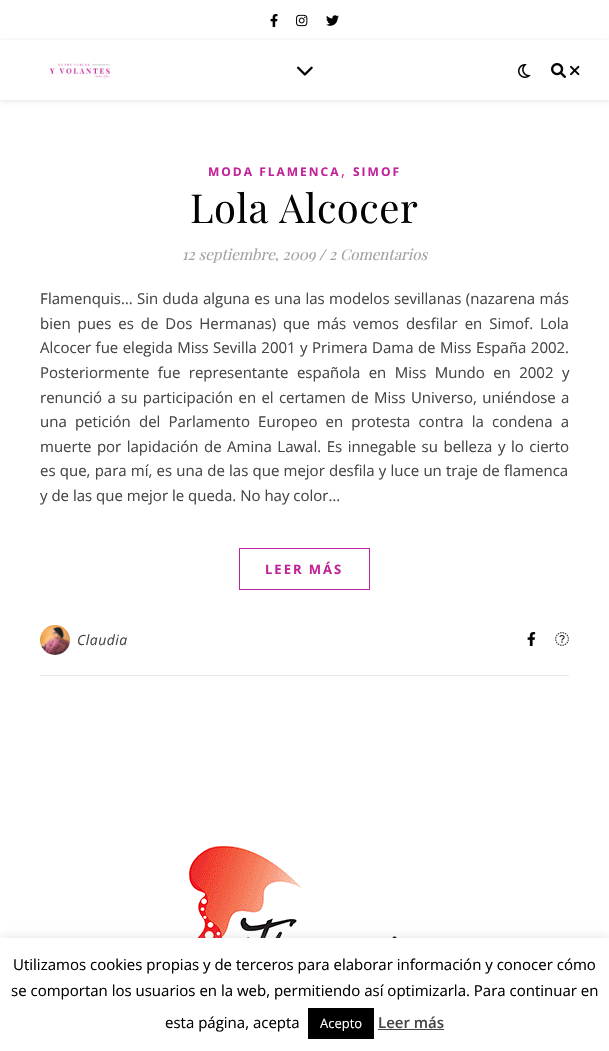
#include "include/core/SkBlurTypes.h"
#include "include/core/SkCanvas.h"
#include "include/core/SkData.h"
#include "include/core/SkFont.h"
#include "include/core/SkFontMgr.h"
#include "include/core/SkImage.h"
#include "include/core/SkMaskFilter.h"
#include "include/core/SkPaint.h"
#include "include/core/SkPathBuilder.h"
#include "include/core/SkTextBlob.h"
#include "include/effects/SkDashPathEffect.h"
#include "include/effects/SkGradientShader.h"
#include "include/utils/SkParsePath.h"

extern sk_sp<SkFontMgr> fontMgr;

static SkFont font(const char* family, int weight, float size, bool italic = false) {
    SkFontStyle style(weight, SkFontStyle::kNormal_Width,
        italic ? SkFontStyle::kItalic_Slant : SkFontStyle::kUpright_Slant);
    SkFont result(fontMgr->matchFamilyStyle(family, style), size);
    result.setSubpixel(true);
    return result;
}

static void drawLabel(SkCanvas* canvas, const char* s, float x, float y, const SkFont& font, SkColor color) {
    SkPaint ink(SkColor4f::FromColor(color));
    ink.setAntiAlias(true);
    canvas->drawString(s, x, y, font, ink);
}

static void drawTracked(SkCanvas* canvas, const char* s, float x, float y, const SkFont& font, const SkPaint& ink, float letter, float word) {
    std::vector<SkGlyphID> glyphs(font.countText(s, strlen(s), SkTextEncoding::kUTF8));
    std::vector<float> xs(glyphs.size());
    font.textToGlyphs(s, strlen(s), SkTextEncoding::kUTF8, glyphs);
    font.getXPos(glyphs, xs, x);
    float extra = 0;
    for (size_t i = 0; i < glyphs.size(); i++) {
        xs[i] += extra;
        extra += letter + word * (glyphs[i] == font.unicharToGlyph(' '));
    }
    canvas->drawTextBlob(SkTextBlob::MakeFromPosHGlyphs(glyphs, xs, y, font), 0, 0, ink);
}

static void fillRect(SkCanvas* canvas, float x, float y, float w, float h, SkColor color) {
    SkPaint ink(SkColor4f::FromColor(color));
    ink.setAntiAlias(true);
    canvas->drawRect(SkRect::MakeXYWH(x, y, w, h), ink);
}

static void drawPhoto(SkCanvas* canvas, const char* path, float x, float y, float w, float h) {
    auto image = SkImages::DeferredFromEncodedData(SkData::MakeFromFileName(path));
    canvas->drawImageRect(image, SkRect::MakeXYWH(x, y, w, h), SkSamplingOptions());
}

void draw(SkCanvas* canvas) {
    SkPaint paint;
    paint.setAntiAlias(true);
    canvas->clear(0xFFFFFFFF);
    drawPhoto(canvas, "assets/img1.png", 270, 14, 8, 13);
    drawPhoto(canvas, "assets/img2.png", 296, 14, 12, 13);
    drawPhoto(canvas, "assets/img3.png", 326, 15, 13, 11);
    paint.setColor(0x1A000000);
    paint.setMaskFilter(SkMaskFilter::MakeBlur(kNormal_SkBlurStyle, 2.5f));
    canvas->drawRect(SkRect::MakeXYWH(0, 41, 609, 60), paint);
    paint.setMaskFilter(nullptr);
    fillRect(canvas, 0, 40, 609, 60, 0xFFFFFFFF);
    drawPhoto(canvas, "assets/img4.png", 49, 63, 61, 16);
    drawPhoto(canvas, "assets/img5.png", 297, 66, 16, 10);
    drawPhoto(canvas, "assets/img6.png", 518, 64, 13, 14);
    drawPhoto(canvas, "assets/img7.png", 551, 63, 15, 15);
    drawPhoto(canvas, "assets/img8.png", 570, 65, 10, 11);
    SkFont font1 = font("Open Sans", 700, 12);
    paint.setColor(0xFFC12398);
    drawTracked(canvas, "MODA FLAMENCA", 208, 176, font1, paint, 2, 0);
    SkFont font2 = font("Open Sans", 400, 15);
    drawLabel(canvas, ",", 341, 176, font2, 0xFFC12398);
    drawTracked(canvas, "SIMOF", 353, 176, font1, paint, 2, 0);
    SkFont font3 = font("Playfair Display", 400, 40);
    paint.setColor(0xFF030303);
    drawTracked(canvas, "Lola Alcocer", 190, 223, font3, paint, 0.5f, 0);
    SkFont font4 = font("Playfair Display", 400, 15, true);
    drawLabel(canvas, "12 septiembre, 2009", 182, 260, font4, 0xFFA1A1A1);
    drawLabel(canvas, "/", 319, 260, font4, 0xFF464646);
    drawLabel(canvas, "2 Comentarios", 329, 260, font4, 0xFFA1A1A1);
    SkFont font5 = font("Noto Sans", 400, 15);
    drawLabel(canvas, "F", 40, 304, font5, 0xFF464646);
    paint.setColor(0xFF464646);
    drawTracked(canvas, "lamenquis… Sin duda alguna es una las modelos sevillanas (nazarena más", 48, 304, font2, paint, 0, 0.5f);
    drawTracked(canvas, "bien pues es de Dos Hermanas) que más vemos desfilar en Simof. Lola", 40, 329, font2, paint, 0, 3);
    drawTracked(canvas, "Alcocer fue elegida Miss Sevilla 2001 y Primera Dama de Miss España 2002.", 40, 353, font2, paint, 0, 0.5f);
    drawTracked(canvas, "Posteriormente fue representante española en Miss Mundo en 2002 y", 40, 378, font2, paint, 0, 4.5f);
    drawTracked(canvas, "renunció a su participación en el certamen de Miss Universo, uniéndose a", 40, 403, font2, paint, 0, 1.4f);
    drawTracked(canvas, "una petición del Parlamento Europeo en protesta contra la condena a", 40, 427, font2, paint, 0, 4.25f);
    drawTracked(canvas, "muerte por lapidación de Amina Lawal. Es innegable su belleza y lo cierto", 40, 452, font2, paint, 0, 1.6f);
    drawTracked(canvas, "es que, para mí, es una de las que mejor desfila y luce un traje de flamenca", 40, 476, font2, paint, 0, 0.3f);
    drawLabel(canvas, "y de las que mejor le queda. No hay color…", 40, 501, font2, 0xFF464646);
    paint.setStroke(true);
    paint.setStrokeWidth(1);
    paint.setColor(0xFFC12398);
    canvas->drawRect(SkRect::MakeXYWH(239.5f, 548.5f, 130, 41), paint);
    SkFont font6 = font("Open Sans", 700, 13);
    paint.setStroke(false);
    drawTracked(canvas, "LEER MÁS", 265, 574, font6, paint, 2, 0);
    fillRect(canvas, 40, 675, 529, 1, 0xFFE8E8E8);
    drawPhoto(canvas, "assets/img9.png", 40, 625, 30, 30);
    SkFont font7 = font("Open Sans", 400, 14, true);
    paint.setColor(0xFF464646);
    drawTracked(canvas, "Claudia", 77, 645, font7, paint, 0.5f, 0);
    drawPhoto(canvas, "assets/img10.png", 527, 632, 9, 14);
    drawPhoto(canvas, "assets/img11.png", 555, 632, 14, 14);
    drawPhoto(canvas, "assets/img12.png", 55, 845, 500, 93);
    paint.setColor(0x4DACABAB);
    paint.setMaskFilter(SkMaskFilter::MakeBlur(kNormal_SkBlurStyle, 5));
    canvas->drawRect(SkRect::MakeXYWH(0, 937, 609, 113), paint);
    paint.setMaskFilter(nullptr);
    fillRect(canvas, 0, 938, 609, 113, 0xFFFFFFFF);
    drawLabel(canvas, "Utilizamos cookies propias y de terceros para elaborar información y conocer cómo", 13, 970, font2, 0xFF030303);
    drawLabel(canvas, "se comportan los usuarios en la web, permitiendo así optimizarla. Para continuar en", 11, 996, font2, 0xFF030303);
    drawLabel(canvas, "esta página, acepta", 165, 1028, font2, 0xFF030303);
    fillRect(canvas, 308, 1008, 66, 31, 0xFF000000);
    SkFont font8 = font("Open Sans", 400, 13);
    drawLabel(canvas, "Acepto", 320, 1028, font8, 0xFFFFFFFF);
    SkFont font9 = font("Open Sans", 600, 15);
    drawLabel(canvas, "Leer más", 378, 1028, font9, 0xFF464646);
    fillRect(canvas, 378, 1029, 66, 1, 0xFF444444);
}
